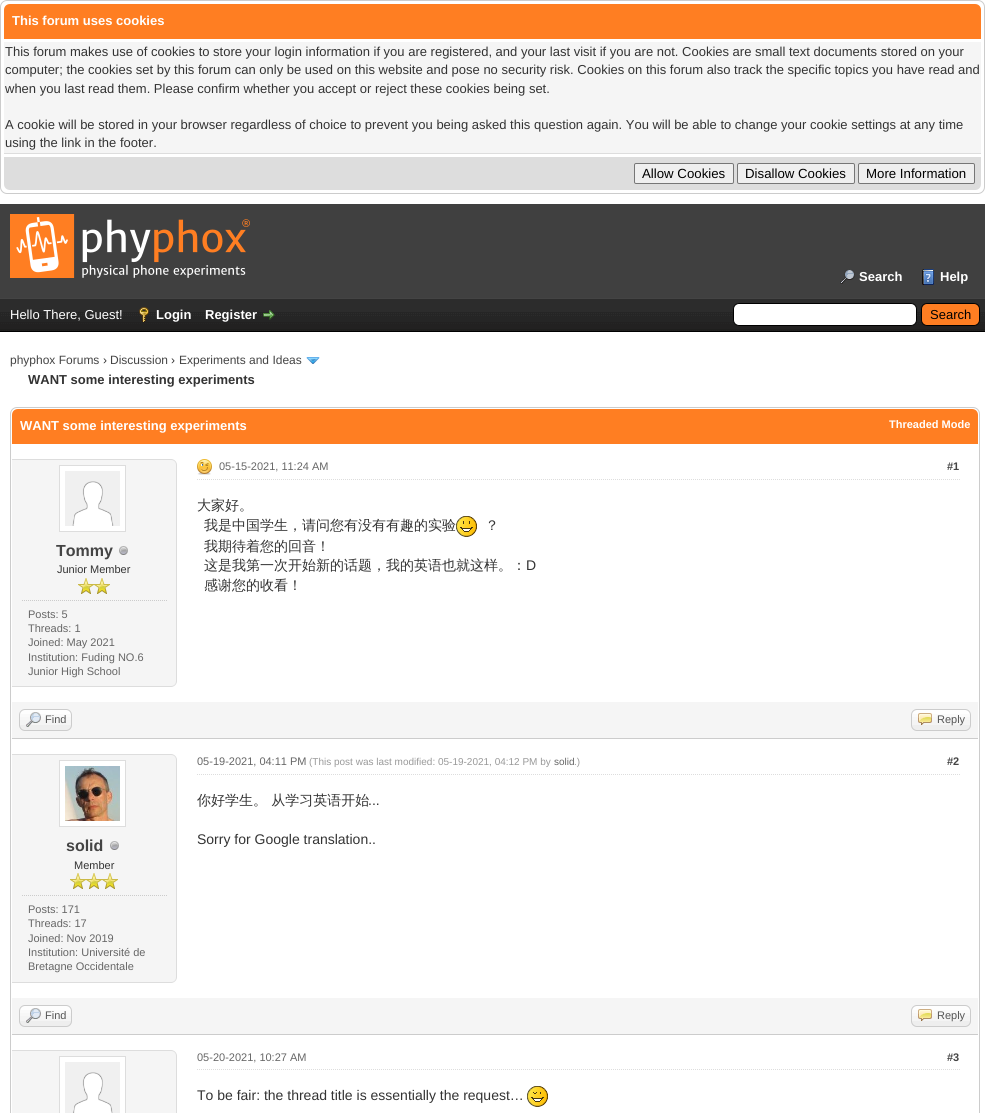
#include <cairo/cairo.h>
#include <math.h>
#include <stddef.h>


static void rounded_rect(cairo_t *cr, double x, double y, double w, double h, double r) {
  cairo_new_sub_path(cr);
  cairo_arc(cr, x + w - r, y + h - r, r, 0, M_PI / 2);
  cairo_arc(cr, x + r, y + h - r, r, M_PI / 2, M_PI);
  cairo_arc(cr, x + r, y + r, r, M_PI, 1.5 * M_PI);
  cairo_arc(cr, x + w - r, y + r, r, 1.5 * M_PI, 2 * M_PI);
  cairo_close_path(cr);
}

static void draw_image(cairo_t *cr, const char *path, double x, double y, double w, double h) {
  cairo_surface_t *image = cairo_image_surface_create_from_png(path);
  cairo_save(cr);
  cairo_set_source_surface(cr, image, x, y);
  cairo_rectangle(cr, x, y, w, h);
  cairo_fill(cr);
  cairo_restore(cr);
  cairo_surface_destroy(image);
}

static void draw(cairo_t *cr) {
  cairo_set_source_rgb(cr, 1, 1, 1);
  cairo_paint(cr);
  rounded_rect(cr, 0.5, 0.5, 984, 193, 6.5);
  cairo_set_source_rgb(cr, 204 / 255.0, 204 / 255.0, 204 / 255.0);
  cairo_set_line_width(cr, 1);
  cairo_stroke(cr);
  cairo_set_source_rgb(cr, 1, 126 / 255.0, 34 / 255.0);
  cairo_new_path(cr);
  cairo_move_to(cr, 10, 4);
  cairo_line_to(cr, 975, 4);
  cairo_curve_to(cr, 978.5, 4, 981, 6.5, 981, 10);
  cairo_line_to(cr, 981, 39);
  cairo_line_to(cr, 4, 39);
  cairo_line_to(cr, 4, 10);
  cairo_curve_to(cr, 4, 6.5, 6.5, 4, 10, 4);
  cairo_close_path(cr);
  cairo_fill(cr);
  cairo_set_source_rgb(cr, 245 / 255.0, 245 / 255.0, 245 / 255.0);
  cairo_rectangle(cr, 4, 42, 977, 111);
  cairo_fill(cr);
  cairo_set_source_rgb(cr, 221 / 255.0, 221 / 255.0, 221 / 255.0);
  cairo_rectangle(cr, 4, 153, 977, 1);
  cairo_fill(cr);
  cairo_new_path(cr);
  cairo_move_to(cr, 4, 156);
  cairo_line_to(cr, 981, 156);
  cairo_line_to(cr, 981, 184);
  cairo_curve_to(cr, 981, 187.5, 978.5, 190, 975, 190);
  cairo_line_to(cr, 10, 190);
  cairo_curve_to(cr, 6.5, 190, 4, 187.5, 4, 184);
  cairo_close_path(cr);
  cairo_fill(cr);
  cairo_set_source_rgb(cr, 1, 1, 1);
  cairo_rectangle(cr, 4, 156, 977, 1);
  cairo_fill(cr);
  cairo_set_source_rgb(cr, 239 / 255.0, 239 / 255.0, 239 / 255.0);
  rounded_rect(cr, 634.5, 163.5, 99, 20, 1.5);
  cairo_fill_preserve(cr);
  cairo_set_source_rgb(cr, 118 / 255.0, 118 / 255.0, 118 / 255.0);
  cairo_stroke(cr);
  cairo_set_source_rgb(cr, 239 / 255.0, 239 / 255.0, 239 / 255.0);
  rounded_rect(cr, 737.5, 163.5, 117, 20, 1.5);
  cairo_fill_preserve(cr);
  cairo_set_source_rgb(cr, 118 / 255.0, 118 / 255.0, 118 / 255.0);
  cairo_stroke(cr);
  cairo_set_source_rgb(cr, 239 / 255.0, 239 / 255.0, 239 / 255.0);
  rounded_rect(cr, 858.5, 163.5, 116, 20, 1.5);
  cairo_fill_preserve(cr);
  cairo_set_source_rgb(cr, 118 / 255.0, 118 / 255.0, 118 / 255.0);
  cairo_stroke(cr);
  cairo_set_source_rgb(cr, 64 / 255.0, 64 / 255.0, 64 / 255.0);
  cairo_rectangle(cr, 0, 204, 985, 94);
  cairo_fill(cr);
  draw_image(cr, "images/1.png", 10, 214, 240, 64);
  draw_image(cr, "images/2.png", 840, 269, 15, 15);
  draw_image(cr, "images/3.png", 922, 269, 12, 16);
  draw_image(cr, "images/4.png", 0, 299, 985, 32);
  cairo_set_source_rgb(cr, 68 / 255.0, 68 / 255.0, 68 / 255.0);
  cairo_rectangle(cr, 0, 298, 985, 1);
  cairo_fill(cr);
  cairo_set_source_rgb(cr, 0, 0, 0);
  cairo_rectangle(cr, 0, 331, 985, 1);
  cairo_fill(cr);
  draw_image(cr, "images/5.png", 139, 307, 10, 15);
  draw_image(cr, "images/6.png", 263, 310, 12, 10);
  cairo_set_source_rgb(cr, 1, 1, 1);
  rounded_rect(cr, 733.5, 303.5, 183, 22, 5.5);
  cairo_fill_preserve(cr);
  cairo_set_source_rgb(cr, 0, 0, 0);
  cairo_stroke(cr);
  cairo_set_source_rgb(cr, 1, 126 / 255.0, 34 / 255.0);
  rounded_rect(cr, 921.5, 303.5, 58, 22, 5.5);
  cairo_fill_preserve(cr);
  cairo_set_source_rgb(cr, 0, 0, 0);
  cairo_stroke(cr);
  draw_image(cr, "images/7.png", 306, 357, 14, 7);
  rounded_rect(cr, 10.5, 407.5, 969, 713, 6.5);
  cairo_set_source_rgb(cr, 204 / 255.0, 204 / 255.0, 204 / 255.0);
  cairo_stroke(cr);
  cairo_set_source_rgb(cr, 1, 126 / 255.0, 34 / 255.0);
  cairo_new_path(cr);
  cairo_move_to(cr, 18, 409);
  cairo_line_to(cr, 972, 409);
  cairo_curve_to(cr, 975.5, 409, 978, 411.5, 978, 415);
  cairo_line_to(cr, 978, 444);
  cairo_line_to(cr, 12, 444);
  cairo_line_to(cr, 12, 415);
  cairo_curve_to(cr, 12, 411.5, 14.5, 409, 18, 409);
  cairo_close_path(cr);
  cairo_fill(cr);
  cairo_new_path(cr);
  cairo_move_to(cr, 197, 479.5);
  cairo_line_to(cr, 960, 479.5);
  cairo_set_source_rgb(cr, 221 / 255.0, 221 / 255.0, 221 / 255.0);
  cairo_set_dash(cr, (double[]){1, 1}, 2, 0);
  cairo_stroke(cr);
  draw_image(cr, "images/8.png", 197, 459, 15, 16);
  draw_image(cr, "images/9.png", 456, 516, 21, 21);
  cairo_set_source_rgb(cr, 245 / 255.0, 245 / 255.0, 245 / 255.0);
  cairo_new_path(cr);
  cairo_move_to(cr, 12, 459);
  cairo_line_to(cr, 171, 459);
  cairo_curve_to(cr, 174.5, 459, 177, 461.5, 177, 465);
  cairo_line_to(cr, 177, 681);
  cairo_curve_to(cr, 177, 684.5, 174.5, 687, 171, 687);
  cairo_line_to(cr, 12, 687);
  cairo_close_path(cr);
  cairo_fill(cr);
  cairo_set_source_rgb(cr, 221 / 255.0, 221 / 255.0, 221 / 255.0);
  cairo_set_fill_rule(cr, CAIRO_FILL_RULE_EVEN_ODD);
  cairo_new_path(cr);
  cairo_move_to(cr, 12, 459);
  cairo_line_to(cr, 171, 459);
  cairo_curve_to(cr, 174, 459, 177, 462, 177, 465);
  cairo_line_to(cr, 177, 681);
  cairo_curve_to(cr, 177, 684, 174, 687, 171, 687);
  cairo_line_to(cr, 12, 687);
  cairo_close_path(cr);
  cairo_move_to(cr, 12, 460);
  cairo_line_to(cr, 171, 460);
  cairo_curve_to(cr, 174, 460, 176, 462, 176, 465);
  cairo_line_to(cr, 176, 681);
  cairo_curve_to(cr, 176, 684, 174, 686, 171, 686);
  cairo_line_to(cr, 12, 686);
  cairo_close_path(cr);
  cairo_fill(cr);
  cairo_set_source_rgb(cr, 1, 1, 1);
  cairo_rectangle(cr, 59.5, 465.5, 66, 66);
  cairo_fill_preserve(cr);
  cairo_set_source_rgb(cr, 221 / 255.0, 221 / 255.0, 221 / 255.0);
  cairo_set_dash(cr, NULL, 0, 0);
  cairo_stroke(cr);
  draw_image(cr, "images/10.png", 65, 471, 55, 55);
  draw_image(cr, "images/11.png", 119, 546, 9, 9);
  draw_image(cr, "images/12.png", 78, 578, 16, 16);
  draw_image(cr, "images/12.png", 94, 578, 16, 16);
  cairo_new_path(cr);
  cairo_move_to(cr, 22, 600.5);
  cairo_line_to(cr, 167, 600.5);
  cairo_set_source_rgb(cr, 204 / 255.0, 204 / 255.0, 204 / 255.0);
  cairo_set_dash(cr, (double[]){1, 1}, 2, 0);
  cairo_stroke(cr);
  cairo_set_source_rgb(cr, 245 / 255.0, 245 / 255.0, 245 / 255.0);
  cairo_rectangle(cr, 12, 702, 966, 36);
  cairo_fill(cr);
  cairo_set_source_rgb(cr, 204 / 255.0, 204 / 255.0, 204 / 255.0);
  cairo_rectangle(cr, 12, 738, 966, 1);
  cairo_fill(cr);
  cairo_set_source_rgb(cr, 238 / 255.0, 238 / 255.0, 238 / 255.0);
  rounded_rect(cr, 19, 709, 53, 22, 6);
  cairo_fill(cr);
  draw_image(cr, "images/13.png", 19, 710, 53, 15);
  rounded_rect(cr, 19.5, 709.5, 52, 21, 5.5);
  cairo_set_source_rgb(cr, 204 / 255.0, 204 / 255.0, 204 / 255.0);
  cairo_set_dash(cr, NULL, 0, 0);
  cairo_stroke(cr);
  draw_image(cr, "images/14.png", 26, 712, 15, 15);
  cairo_set_source_rgb(cr, 238 / 255.0, 238 / 255.0, 238 / 255.0);
  rounded_rect(cr, 911, 709, 60, 22, 6);
  cairo_fill(cr);
  draw_image(cr, "images/15.png", 911, 710, 60, 15);
  rounded_rect(cr, 911.5, 709.5, 59, 21, 5.5);
  cairo_set_source_rgb(cr, 204 / 255.0, 204 / 255.0, 204 / 255.0);
  cairo_stroke(cr);
  draw_image(cr, "images/16.png", 918, 713, 14, 12);
  cairo_new_path(cr);
  cairo_move_to(cr, 197, 774.5);
  cairo_line_to(cr, 960, 774.5);
  cairo_set_source_rgb(cr, 221 / 255.0, 221 / 255.0, 221 / 255.0);
  cairo_set_dash(cr, (double[]){1, 1}, 2, 0);
  cairo_stroke(cr);
  cairo_set_source_rgb(cr, 245 / 255.0, 245 / 255.0, 245 / 255.0);
  cairo_new_path(cr);
  cairo_move_to(cr, 12, 754);
  cairo_line_to(cr, 171, 754);
  cairo_curve_to(cr, 174.5, 754, 177, 756.5, 177, 760);
  cairo_line_to(cr, 177, 977);
  cairo_curve_to(cr, 177, 980.5, 174.5, 983, 171, 983);
  cairo_line_to(cr, 12, 983);
  cairo_close_path(cr);
  cairo_fill(cr);
  cairo_set_source_rgb(cr, 221 / 255.0, 221 / 255.0, 221 / 255.0);
  cairo_new_path(cr);
  cairo_move_to(cr, 12, 754);
  cairo_line_to(cr, 171, 754);
  cairo_curve_to(cr, 174, 754, 177, 757, 177, 760);
  cairo_line_to(cr, 177, 977);
  cairo_curve_to(cr, 177, 980, 174, 983, 171, 983);
  cairo_line_to(cr, 12, 983);
  cairo_close_path(cr);
  cairo_move_to(cr, 12, 755);
  cairo_line_to(cr, 171, 755);
  cairo_curve_to(cr, 174, 755, 176, 757, 176, 760);
  cairo_line_to(cr, 176, 977);
  cairo_curve_to(cr, 176, 980, 174, 982, 171, 982);
  cairo_line_to(cr, 12, 982);
  cairo_close_path(cr);
  cairo_fill(cr);
  cairo_set_source_rgb(cr, 1, 1, 1);
  cairo_rectangle(cr, 59.5, 760.5, 66, 66);
  cairo_fill_preserve(cr);
  cairo_set_source_rgb(cr, 221 / 255.0, 221 / 255.0, 221 / 255.0);
  cairo_set_dash(cr, NULL, 0, 0);
  cairo_stroke(cr);
  draw_image(cr, "images/17.png", 65, 766, 55, 55);
  draw_image(cr, "images/11.png", 110, 841, 9, 9);
  draw_image(cr, "images/12.png", 70, 873, 16, 16);
  draw_image(cr, "images/12.png", 86, 873, 16, 16);
  draw_image(cr, "images/12.png", 102, 873, 16, 16);
  cairo_new_path(cr);
  cairo_move_to(cr, 22, 895.5);
  cairo_line_to(cr, 167, 895.5);
  cairo_set_source_rgb(cr, 204 / 255.0, 204 / 255.0, 204 / 255.0);
  cairo_set_dash(cr, (double[]){1, 1}, 2, 0);
  cairo_stroke(cr);
  cairo_set_source_rgb(cr, 245 / 255.0, 245 / 255.0, 245 / 255.0);
  cairo_rectangle(cr, 12, 998, 966, 36);
  cairo_fill(cr);
  cairo_set_source_rgb(cr, 204 / 255.0, 204 / 255.0, 204 / 255.0);
  cairo_rectangle(cr, 12, 1034, 966, 1);
  cairo_fill(cr);
  cairo_set_source_rgb(cr, 238 / 255.0, 238 / 255.0, 238 / 255.0);
  rounded_rect(cr, 19, 1005, 53, 22, 6);
  cairo_fill(cr);
  draw_image(cr, "images/13.png", 19, 1006, 53, 15);
  rounded_rect(cr, 19.5, 1005.5, 52, 21, 5.5);
  cairo_set_source_rgb(cr, 204 / 255.0, 204 / 255.0, 204 / 255.0);
  cairo_set_dash(cr, NULL, 0, 0);
  cairo_stroke(cr);
  draw_image(cr, "images/14.png", 26, 1008, 15, 15);
  cairo_set_source_rgb(cr, 238 / 255.0, 238 / 255.0, 238 / 255.0);
  rounded_rect(cr, 911, 1005, 60, 22, 6);
  cairo_fill(cr);
  draw_image(cr, "images/15.png", 911, 1006, 60, 15);
  rounded_rect(cr, 911.5, 1005.5, 59, 21, 5.5);
  cairo_set_source_rgb(cr, 204 / 255.0, 204 / 255.0, 204 / 255.0);
  cairo_stroke(cr);
  draw_image(cr, "images/16.png", 918, 1009, 14, 12);
  cairo_set_source_rgb(cr, 245 / 255.0, 245 / 255.0, 245 / 255.0);
  cairo_new_path(cr);
  cairo_move_to(cr, 12, 1050);
  cairo_line_to(cr, 171, 1050);
  cairo_curve_to(cr, 174.5, 1050, 177, 1052.5, 177, 1056);
  cairo_line_to(cr, 177, 1113);
  cairo_curve_to(cr, 177, 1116.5, 174.5, 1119, 171, 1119);
  cairo_line_to(cr, 12, 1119);
  cairo_close_path(cr);
  cairo_fill(cr);
  cairo_set_source_rgb(cr, 221 / 255.0, 221 / 255.0, 221 / 255.0);
  cairo_new_path(cr);
  cairo_move_to(cr, 12, 1050);
  cairo_line_to(cr, 171, 1050);
  cairo_curve_to(cr, 174, 1050, 177, 1053, 177, 1056);
  cairo_line_to(cr, 177, 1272);
  cairo_curve_to(cr, 177, 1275, 174, 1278, 171, 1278);
  cairo_line_to(cr, 12, 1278);
  cairo_close_path(cr);
  cairo_move_to(cr, 12, 1051);
  cairo_line_to(cr, 171, 1051);
  cairo_curve_to(cr, 174, 1051, 176, 1053, 176, 1056);
  cairo_line_to(cr, 176, 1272);
  cairo_curve_to(cr, 176, 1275, 174, 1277, 171, 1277);
  cairo_line_to(cr, 12, 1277);
  cairo_close_path(cr);
  cairo_fill(cr);
  cairo_set_source_rgb(cr, 1, 1, 1);
  cairo_rectangle(cr, 59.5, 1056.5, 66, 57);
  cairo_fill_preserve(cr);
  cairo_set_source_rgb(cr, 221 / 255.0, 221 / 255.0, 221 / 255.0);
  cairo_stroke(cr);
  draw_image(cr, "images/18.png", 65, 1062, 55, 51);
  cairo_new_path(cr);
  cairo_move_to(cr, 197, 1069.5);
  cairo_line_to(cr, 960, 1069.5);
  cairo_set_dash(cr, (double[]){1, 1}, 2, 0);
  cairo_stroke(cr);
  draw_image(cr, "images/19.png", 527, 1086, 21, 21);
  cairo_select_font_face(cr, "Liberation Sans", CAIRO_FONT_SLANT_NORMAL, CAIRO_FONT_WEIGHT_BOLD);
  cairo_set_font_size(cr, 13);
  cairo_set_source_rgb(cr, 1, 1, 1);
  cairo_move_to(cr, 12, 25);
  cairo_show_text(cr, "This forum uses cookies");
  cairo_select_font_face(cr, "Liberation Sans", CAIRO_FONT_SLANT_NORMAL, CAIRO_FONT_WEIGHT_NORMAL);
  cairo_set_source_rgb(cr, 51 / 255.0, 51 / 255.0, 51 / 255.0);
  cairo_move_to(cr, 5, 56);
  cairo_show_text(cr, "This forum makes use of cookies to store your login information if you are registered, and your last visit if you are not. Cookies are small text documents stored on your");
  cairo_move_to(cr, 5, 74);
  cairo_show_text(cr, "computer; the cookies set by this forum can only be used on this website and pose no security risk. Cookies on this forum also track the specific topics you have read and");
  cairo_move_to(cr, 5, 93);
  cairo_show_text(cr, "when you last read them. Please confirm whether you accept or reject these cookies being set.");
  cairo_move_to(cr, 5, 129);
  cairo_show_text(cr, "A cookie will be stored in your browser regardless of choice to prevent you being asked this question again. You will be able to change your cookie settings at any time");
  cairo_move_to(cr, 5, 147);
  cairo_show_text(cr, "using the link in the footer.");
  cairo_set_font_size(cr, 13.25);
  cairo_set_source_rgb(cr, 0, 0, 0);
  cairo_move_to(cr, 642, 178);
  cairo_show_text(cr, "Allow Cookies");
  cairo_move_to(cr, 745, 178);
  cairo_show_text(cr, "Disallow Cookies");
  cairo_move_to(cr, 866, 178);
  cairo_show_text(cr, "More Information");
  cairo_select_font_face(cr, "Liberation Sans", CAIRO_FONT_SLANT_NORMAL, CAIRO_FONT_WEIGHT_BOLD);
  cairo_set_font_size(cr, 13);
  cairo_set_source_rgb(cr, 1, 1, 1);
  cairo_move_to(cr, 859, 281);
  cairo_show_text(cr, "Search");
  cairo_move_to(cr, 940, 281);
  cairo_show_text(cr, "Help");
  cairo_select_font_face(cr, "Liberation Sans", CAIRO_FONT_SLANT_NORMAL, CAIRO_FONT_WEIGHT_NORMAL);
  cairo_move_to(cr, 10, 319);
  cairo_show_text(cr, "Hello There, Guest!");
  cairo_select_font_face(cr, "Liberation Sans", CAIRO_FONT_SLANT_NORMAL, CAIRO_FONT_WEIGHT_BOLD);
  cairo_move_to(cr, 156, 319);
  cairo_show_text(cr, "Login");
  cairo_move_to(cr, 205, 319);
  cairo_show_text(cr, "Register");
  cairo_select_font_face(cr, "Liberation Sans", CAIRO_FONT_SLANT_NORMAL, CAIRO_FONT_WEIGHT_NORMAL);
  cairo_set_source_rgb(cr, 0, 0, 0);
  cairo_move_to(cr, 930, 319);
  cairo_show_text(cr, "Search");
  cairo_set_font_size(cr, 12);
  cairo_set_source_rgb(cr, 68 / 255.0, 68 / 255.0, 68 / 255.0);
  cairo_move_to(cr, 10, 364);
  cairo_show_text(cr, "phyphox Forums");
  cairo_set_source_rgb(cr, 51 / 255.0, 51 / 255.0, 51 / 255.0);
  cairo_move_to(cr, 103, 364);
  cairo_show_text(cr, "›");
  cairo_set_source_rgb(cr, 68 / 255.0, 68 / 255.0, 68 / 255.0);
  cairo_move_to(cr, 110, 364);
  cairo_show_text(cr, "Discussion");
  cairo_set_source_rgb(cr, 51 / 255.0, 51 / 255.0, 51 / 255.0);
  cairo_move_to(cr, 171, 364);
  cairo_show_text(cr, "›");
  cairo_set_source_rgb(cr, 68 / 255.0, 68 / 255.0, 68 / 255.0);
  cairo_move_to(cr, 179, 364);
  cairo_show_text(cr, "Experiments and Ideas");
  cairo_select_font_face(cr, "Liberation Sans", CAIRO_FONT_SLANT_NORMAL, CAIRO_FONT_WEIGHT_BOLD);
  cairo_set_font_size(cr, 13);
  cairo_set_source_rgb(cr, 51 / 255.0, 51 / 255.0, 51 / 255.0);
  cairo_move_to(cr, 28, 384);
  cairo_show_text(cr, "WANT some interesting experiments");
  cairo_set_source_rgb(cr, 1, 1, 1);
  cairo_move_to(cr, 20, 430);
  cairo_show_text(cr, "WANT some interesting experiments");
  cairo_set_font_size(cr, 11);
  cairo_move_to(cr, 889, 428);
  cairo_show_text(cr, "Threaded Mode");
  cairo_select_font_face(cr, "Liberation Sans", CAIRO_FONT_SLANT_NORMAL, CAIRO_FONT_WEIGHT_NORMAL);
  cairo_set_source_rgb(cr, 102 / 255.0, 102 / 255.0, 102 / 255.0);
  cairo_move_to(cr, 219, 470);
  cairo_show_text(cr, "05-15-2021, 11:24 AM");
  cairo_select_font_face(cr, "Liberation Sans", CAIRO_FONT_SLANT_NORMAL, CAIRO_FONT_WEIGHT_BOLD);
  cairo_set_source_rgb(cr, 68 / 255.0, 68 / 255.0, 68 / 255.0);
  cairo_move_to(cr, 947, 470);
  cairo_show_text(cr, "#1");
  cairo_select_font_face(cr, "WenQuanYi Zen Hei Medium", CAIRO_FONT_SLANT_NORMAL, CAIRO_FONT_WEIGHT_NORMAL);
  cairo_set_font_size(cr, 14);
  cairo_set_source_rgb(cr, 51 / 255.0, 51 / 255.0, 51 / 255.0);
  cairo_move_to(cr, 197, 510);
  cairo_show_text(cr, "大家好。");
  cairo_move_to(cr, 204, 530);
  cairo_show_text(cr, "我是中国学生，请问您有没有有趣的实验");
  cairo_move_to(cr, 485, 530);
  cairo_show_text(cr, "？");
  cairo_move_to(cr, 204, 551);
  cairo_show_text(cr, "我期待着您的回音！");
  cairo_move_to(cr, 204, 570);
  cairo_show_text(cr, "这是我第一次开始新的话题，我的英语也就这样。：");
  cairo_select_font_face(cr, "Liberation Sans", CAIRO_FONT_SLANT_NORMAL, CAIRO_FONT_WEIGHT_NORMAL);
  cairo_move_to(cr, 526, 570);
  cairo_show_text(cr, "D");
  cairo_select_font_face(cr, "WenQuanYi Zen Hei Medium", CAIRO_FONT_SLANT_NORMAL, CAIRO_FONT_WEIGHT_NORMAL);
  cairo_move_to(cr, 204, 590);
  cairo_show_text(cr, "感谢您的收看！");
  cairo_select_font_face(cr, "Liberation Sans", CAIRO_FONT_SLANT_NORMAL, CAIRO_FONT_WEIGHT_BOLD);
  cairo_set_font_size(cr, 16);
  cairo_set_source_rgb(cr, 68 / 255.0, 68 / 255.0, 68 / 255.0);
  cairo_move_to(cr, 56, 556);
  cairo_show_text(cr, "Tommy");
  cairo_select_font_face(cr, "Liberation Sans", CAIRO_FONT_SLANT_NORMAL, CAIRO_FONT_WEIGHT_NORMAL);
  cairo_set_font_size(cr, 11);
  cairo_set_source_rgb(cr, 51 / 255.0, 51 / 255.0, 51 / 255.0);
  cairo_move_to(cr, 57, 573);
  cairo_show_text(cr, "Junior Member");
  cairo_set_source_rgb(cr, 102 / 255.0, 102 / 255.0, 102 / 255.0);
  cairo_move_to(cr, 28, 618);
  cairo_show_text(cr, "Posts: 5");
  cairo_move_to(cr, 28, 632);
  cairo_show_text(cr, "Threads: 1");
  cairo_move_to(cr, 28, 646);
  cairo_show_text(cr, "Joined: May 2021");
  cairo_move_to(cr, 28, 661);
  cairo_show_text(cr, "Institution: Fuding NO.6");
  cairo_move_to(cr, 28, 675);
  cairo_show_text(cr, "Junior High School");
  cairo_set_source_rgb(cr, 85 / 255.0, 85 / 255.0, 85 / 255.0);
  cairo_move_to(cr, 45, 723);
  cairo_show_text(cr, "Find");
  cairo_move_to(cr, 937, 723);
  cairo_show_text(cr, "Reply");
  cairo_set_source_rgb(cr, 102 / 255.0, 102 / 255.0, 102 / 255.0);
  cairo_move_to(cr, 197, 765);
  cairo_show_text(cr, "05-19-2021, 04:11 PM");
  cairo_set_font_size(cr, 10);
  cairo_set_source_rgb(cr, 153 / 255.0, 153 / 255.0, 153 / 255.0);
  cairo_move_to(cr, 309, 765);
  cairo_show_text(cr, "(This post was last modified: 05-19-2021, 04:12 PM by");
  cairo_set_source_rgb(cr, 102 / 255.0, 102 / 255.0, 102 / 255.0);
  cairo_move_to(cr, 554, 765);
  cairo_show_text(cr, "solid");
  cairo_set_source_rgb(cr, 153 / 255.0, 153 / 255.0, 153 / 255.0);
  cairo_move_to(cr, 574, 765);
  cairo_show_text(cr, ".)");
  cairo_select_font_face(cr, "Liberation Sans", CAIRO_FONT_SLANT_NORMAL, CAIRO_FONT_WEIGHT_BOLD);
  cairo_set_font_size(cr, 11);
  cairo_set_source_rgb(cr, 68 / 255.0, 68 / 255.0, 68 / 255.0);
  cairo_move_to(cr, 947, 765);
  cairo_show_text(cr, "#2");
  cairo_select_font_face(cr, "WenQuanYi Zen Hei Medium", CAIRO_FONT_SLANT_NORMAL, CAIRO_FONT_WEIGHT_NORMAL);
  cairo_set_font_size(cr, 14);
  cairo_set_source_rgb(cr, 51 / 255.0, 51 / 255.0, 51 / 255.0);
  cairo_move_to(cr, 197, 805);
  cairo_show_text(cr, "你好学生。 从学习英语开始");
  cairo_select_font_face(cr, "Liberation Sans", CAIRO_FONT_SLANT_NORMAL, CAIRO_FONT_WEIGHT_NORMAL);
  cairo_move_to(cr, 368, 805);
  cairo_show_text(cr, "...");
  cairo_move_to(cr, 197, 844);
  cairo_show_text(cr, "Sorry for Google translation..");
  cairo_select_font_face(cr, "Liberation Sans", CAIRO_FONT_SLANT_NORMAL, CAIRO_FONT_WEIGHT_BOLD);
  cairo_set_font_size(cr, 16);
  cairo_set_source_rgb(cr, 68 / 255.0, 68 / 255.0, 68 / 255.0);
  cairo_move_to(cr, 66, 851);
  cairo_show_text(cr, "solid");
  cairo_select_font_face(cr, "Liberation Sans", CAIRO_FONT_SLANT_NORMAL, CAIRO_FONT_WEIGHT_NORMAL);
  cairo_set_font_size(cr, 11);
  cairo_set_source_rgb(cr, 51 / 255.0, 51 / 255.0, 51 / 255.0);
  cairo_move_to(cr, 74, 869);
  cairo_show_text(cr, "Member");
  cairo_set_source_rgb(cr, 102 / 255.0, 102 / 255.0, 102 / 255.0);
  cairo_move_to(cr, 28, 913);
  cairo_show_text(cr, "Posts: 171");
  cairo_move_to(cr, 28, 927);
  cairo_show_text(cr, "Threads: 17");
  cairo_move_to(cr, 28, 942);
  cairo_show_text(cr, "Joined: Nov 2019");
  cairo_move_to(cr, 28, 956);
  cairo_show_text(cr, "Institution: Université de");
  cairo_move_to(cr, 28, 970);
  cairo_show_text(cr, "Bretagne Occidentale");
  cairo_set_source_rgb(cr, 85 / 255.0, 85 / 255.0, 85 / 255.0);
  cairo_move_to(cr, 45, 1019);
  cairo_show_text(cr, "Find");
  cairo_move_to(cr, 937, 1019);
  cairo_show_text(cr, "Reply");
  cairo_set_source_rgb(cr, 102 / 255.0, 102 / 255.0, 102 / 255.0);
  cairo_move_to(cr, 197, 1061);
  cairo_show_text(cr, "05-20-2021, 10:27 AM");
  cairo_select_font_face(cr, "Liberation Sans", CAIRO_FONT_SLANT_NORMAL, CAIRO_FONT_WEIGHT_BOLD);
  cairo_set_source_rgb(cr, 68 / 255.0, 68 / 255.0, 68 / 255.0);
  cairo_move_to(cr, 947, 1061);
  cairo_show_text(cr, "#3");
  cairo_select_font_face(cr, "Liberation Sans", CAIRO_FONT_SLANT_NORMAL, CAIRO_FONT_WEIGHT_NORMAL);
  cairo_set_font_size(cr, 14);
  cairo_set_source_rgb(cr, 51 / 255.0, 51 / 255.0, 51 / 255.0);
  cairo_move_to(cr, 197, 1100);
  cairo_show_text(cr, "To be fair: the thread title is essentially the request…");
}

int main(void) {
  cairo_surface_t *surface = cairo_image_surface_create(CAIRO_FORMAT_RGB24, 985, 1113);
  cairo_t *cr = cairo_create(surface);
  cairo_font_options_t *options = cairo_font_options_create();
  cairo_font_options_set_hint_metrics(options, CAIRO_HINT_METRICS_OFF);
  cairo_font_options_set_hint_style(options, CAIRO_HINT_STYLE_NONE);
  cairo_set_font_options(cr, options);
  cairo_set_miter_limit(cr, 4);
  draw(cr);
  cairo_surface_write_to_png(surface, "out.png");
  cairo_font_options_destroy(options);
  cairo_destroy(cr);
  cairo_surface_destroy(surface);
  return 0;
}
